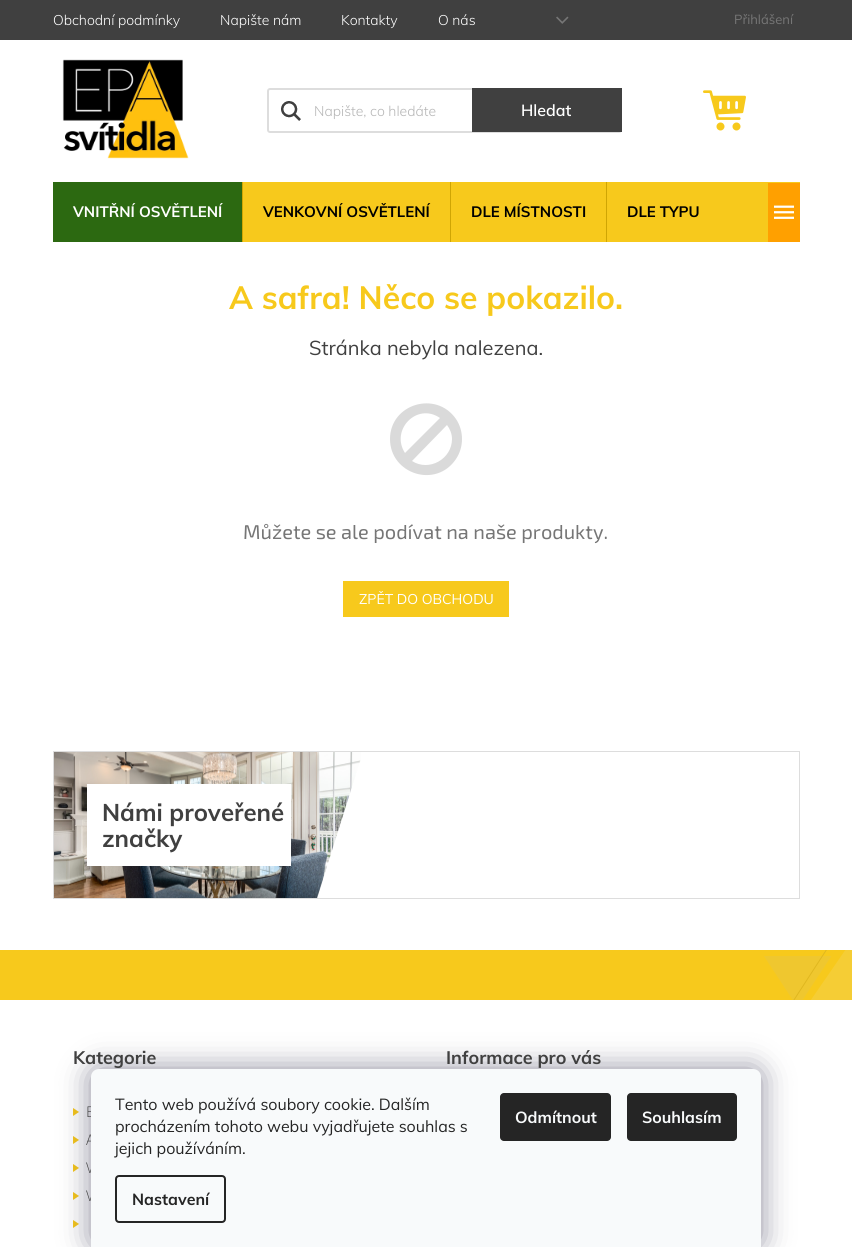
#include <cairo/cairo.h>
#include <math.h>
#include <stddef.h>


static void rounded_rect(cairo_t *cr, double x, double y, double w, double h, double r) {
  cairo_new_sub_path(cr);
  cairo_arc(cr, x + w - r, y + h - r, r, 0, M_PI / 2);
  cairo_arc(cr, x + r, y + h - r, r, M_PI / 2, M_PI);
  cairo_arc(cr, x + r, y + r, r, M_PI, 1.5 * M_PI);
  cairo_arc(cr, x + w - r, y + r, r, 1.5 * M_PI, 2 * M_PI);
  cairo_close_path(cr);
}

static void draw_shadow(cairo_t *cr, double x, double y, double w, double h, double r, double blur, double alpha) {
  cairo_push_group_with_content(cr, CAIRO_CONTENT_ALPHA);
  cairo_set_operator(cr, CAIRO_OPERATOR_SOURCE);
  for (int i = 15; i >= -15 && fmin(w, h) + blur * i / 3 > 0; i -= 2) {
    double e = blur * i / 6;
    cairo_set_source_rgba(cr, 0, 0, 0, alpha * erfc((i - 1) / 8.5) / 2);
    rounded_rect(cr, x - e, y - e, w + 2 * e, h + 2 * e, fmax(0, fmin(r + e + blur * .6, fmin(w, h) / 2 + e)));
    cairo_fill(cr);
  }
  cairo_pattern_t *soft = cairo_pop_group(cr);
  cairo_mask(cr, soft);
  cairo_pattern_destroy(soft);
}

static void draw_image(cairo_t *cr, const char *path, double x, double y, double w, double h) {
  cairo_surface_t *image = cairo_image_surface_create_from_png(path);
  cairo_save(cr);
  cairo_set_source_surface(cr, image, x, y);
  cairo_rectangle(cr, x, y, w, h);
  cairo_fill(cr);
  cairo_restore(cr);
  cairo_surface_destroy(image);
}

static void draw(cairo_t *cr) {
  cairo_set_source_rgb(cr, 1, 1, 1);
  cairo_paint(cr);
  cairo_set_source_rgb(cr, 64 / 255.0, 64 / 255.0, 64 / 255.0);
  cairo_rectangle(cr, 0, 0, 852, 40);
  cairo_fill(cr);
  draw_image(cr, "images/1.png", 556, 16, 13, 8);
  draw_image(cr, "images/2.png", 62, 59, 127, 100);
  draw_image(cr, "images/3.png", 281, 101, 20, 20);
  rounded_rect(cr, 268, 89, 353, 43, 2);
  cairo_set_source_rgb(cr, 221 / 255.0, 221 / 255.0, 221 / 255.0);
  cairo_stroke(cr);
  cairo_set_source_rgb(cr, 64 / 255.0, 64 / 255.0, 64 / 255.0);
  cairo_rectangle(cr, 472, 88, 150, 44);
  cairo_fill(cr);
  draw_image(cr, "images/4.png", 703, 90, 43, 41);
  cairo_set_source_rgb(cr, 247 / 255.0, 201 / 255.0, 28 / 255.0);
  cairo_rectangle(cr, 243, 182, 557, 60);
  cairo_fill(cr);
  cairo_set_source_rgb(cr, 44 / 255.0, 105 / 255.0, 17 / 255.0);
  cairo_rectangle(cr, 53, 182, 189, 60);
  cairo_fill(cr);
  cairo_set_source_rgb(cr, 207 / 255.0, 165 / 255.0, 4 / 255.0);
  cairo_rectangle(cr, 242, 182, 1, 60);
  cairo_fill(cr);
  cairo_rectangle(cr, 450, 182, 1, 60);
  cairo_fill(cr);
  cairo_rectangle(cr, 606, 182, 1, 60);
  cairo_fill(cr);
  cairo_set_source_rgb(cr, 1, 160 / 255.0, 0);
  cairo_rectangle(cr, 768, 183, 32, 59);
  cairo_fill(cr);
  draw_image(cr, "images/5.png", 774, 205, 20, 14);
  cairo_set_source_rgb(cr, 218 / 255.0, 218 / 255.0, 218 / 255.0);
  cairo_new_path(cr);
  cairo_move_to(cr, 452, 439);
  cairo_curve_to(cr, 452, 434, 450, 429, 447, 425);
  cairo_line_to(cr, 412, 461);
  cairo_curve_to(cr, 429, 472, 452, 459, 452, 439);
  cairo_close_path(cr);
  cairo_move_to(cr, 405, 453);
  cairo_line_to(cr, 440, 418);
  cairo_curve_to(cr, 417, 402, 390, 430, 405, 453);
  cairo_close_path(cr);
  cairo_move_to(cr, 462, 439);
  cairo_curve_to(cr, 462, 446, 460, 453, 456, 459);
  cairo_curve_to(cr, 436, 489, 390, 474, 390, 439);
  cairo_curve_to(cr, 390, 404, 436, 390, 456, 419);
  cairo_curve_to(cr, 460, 425, 462, 432, 462, 439);
  cairo_close_path(cr);
  cairo_fill(cr);
  cairo_set_source_rgb(cr, 247 / 255.0, 201 / 255.0, 28 / 255.0);
  cairo_rectangle(cr, 343, 581, 166, 36);
  cairo_fill(cr);
  draw_image(cr, "images/6.png", 54, 752, 307, 146);
  cairo_rectangle(cr, 53.5, 751.5, 746, 147);
  cairo_set_source_rgb(cr, 221 / 255.0, 221 / 255.0, 221 / 255.0);
  cairo_set_line_width(cr, 1);
  cairo_stroke(cr);
  cairo_set_source_rgb(cr, 1, 1, 1);
  cairo_rectangle(cr, 87, 784, 204, 82);
  cairo_fill(cr);
  cairo_set_source_rgb(cr, 247 / 255.0, 201 / 255.0, 28 / 255.0);
  cairo_rectangle(cr, 0, 950, 764, 50);
  cairo_fill(cr);
  draw_image(cr, "images/7.png", 764, 950, 88, 50);
  cairo_set_source_rgb(cr, 247 / 255.0, 200 / 255.0, 28 / 255.0);
  cairo_new_path(cr);
  cairo_move_to(cr, 73, 1116);
  cairo_line_to(cr, 73, 1108);
  cairo_line_to(cr, 79, 1112);
  cairo_close_path(cr);
  cairo_fill(cr);
  cairo_new_path(cr);
  cairo_move_to(cr, 73, 1144);
  cairo_line_to(cr, 73, 1136);
  cairo_line_to(cr, 79, 1140);
  cairo_close_path(cr);
  cairo_fill(cr);
  cairo_new_path(cr);
  cairo_move_to(cr, 73, 1172);
  cairo_line_to(cr, 73, 1164);
  cairo_line_to(cr, 79, 1168);
  cairo_close_path(cr);
  cairo_fill(cr);
  cairo_new_path(cr);
  cairo_move_to(cr, 73, 1200);
  cairo_line_to(cr, 73, 1192);
  cairo_line_to(cr, 79, 1196);
  cairo_close_path(cr);
  cairo_move_to(cr, 73, 1228);
  cairo_line_to(cr, 73, 1220);
  cairo_line_to(cr, 79, 1224);
  cairo_close_path(cr);
  cairo_fill(cr);
  cairo_set_source_rgb(cr, 27 / 255.0, 25 / 255.0, 57 / 255.0);
  draw_shadow(cr, 91, 1069, 670, 178, 8, 15, 0.5);
  cairo_select_font_face(cr, "Muli Light", CAIRO_FONT_SLANT_NORMAL, CAIRO_FONT_WEIGHT_NORMAL);
  cairo_set_font_size(cr, 14);
  cairo_set_source_rgb(cr, 1, 1, 1);
  cairo_move_to(cr, 53, 25);
  cairo_show_text(cr, "Obchodní podmínky");
  cairo_move_to(cr, 220, 25);
  cairo_show_text(cr, "Napište nám");
  cairo_move_to(cr, 341, 25);
  cairo_show_text(cr, "Kontakty");
  cairo_move_to(cr, 438, 25);
  cairo_show_text(cr, "O nás");
  cairo_select_font_face(cr, "Muli", CAIRO_FONT_SLANT_NORMAL, CAIRO_FONT_WEIGHT_NORMAL);
  cairo_set_font_size(cr, 13);
  cairo_set_source_rgb(cr, 118 / 255.0, 118 / 255.0, 118 / 255.0);
  cairo_move_to(cr, 734, 24);
  cairo_show_text(cr, "Přihlášení");
  cairo_select_font_face(cr, "Muli Light", CAIRO_FONT_SLANT_NORMAL, CAIRO_FONT_WEIGHT_NORMAL);
  cairo_set_font_size(cr, 14);
  cairo_set_source_rgb(cr, 182 / 255.0, 182 / 255.0, 182 / 255.0);
  cairo_move_to(cr, 314, 116);
  cairo_show_text(cr, "Napište, co hledáte");
  cairo_select_font_face(cr, "Muli SemiBold", CAIRO_FONT_SLANT_NORMAL, CAIRO_FONT_WEIGHT_NORMAL);
  cairo_set_font_size(cr, 16);
  cairo_set_source_rgb(cr, 1, 1, 1);
  cairo_move_to(cr, 521, 116);
  cairo_show_text(cr, "Hledat");
  cairo_select_font_face(cr, "Muli", CAIRO_FONT_SLANT_NORMAL, CAIRO_FONT_WEIGHT_BOLD);
  cairo_set_font_size(cr, 15);
  cairo_move_to(cr, 73, 217);
  cairo_show_text(cr, "VNITŘNÍ OSVĚTLENÍ");
  cairo_set_source_rgb(cr, 0, 0, 0);
  cairo_move_to(cr, 263, 217);
  cairo_show_text(cr, "VENKOVNÍ OSVĚTLENÍ");
  cairo_move_to(cr, 471, 217);
  cairo_show_text(cr, "DLE MÍSTNOSTI");
  cairo_move_to(cr, 627, 217);
  cairo_show_text(cr, "DLE TYPU");
  cairo_set_font_size(cr, 32);
  cairo_set_source_rgb(cr, 247 / 255.0, 201 / 255.0, 28 / 255.0);
  cairo_move_to(cr, 229, 309);
  cairo_show_text(cr, "A safra! Něco se pokazilo.");
  cairo_select_font_face(cr, "Muli", CAIRO_FONT_SLANT_NORMAL, CAIRO_FONT_WEIGHT_NORMAL);
  cairo_set_font_size(cr, 20);
  cairo_set_source_rgb(cr, 64 / 255.0, 64 / 255.0, 64 / 255.0);
  cairo_move_to(cr, 309, 355);
  cairo_show_text(cr, "Stránka nebyla nalezena.");
  cairo_select_font_face(cr, "Exo 2", CAIRO_FONT_SLANT_NORMAL, CAIRO_FONT_WEIGHT_NORMAL);
  cairo_set_source_rgb(cr, 118 / 255.0, 118 / 255.0, 118 / 255.0);
  cairo_move_to(cr, 243, 539);
  cairo_show_text(cr, "Můžete se ale podívat na naše produkty.");
  cairo_select_font_face(cr, "Muli", CAIRO_FONT_SLANT_NORMAL, CAIRO_FONT_WEIGHT_NORMAL);
  cairo_set_font_size(cr, 14);
  cairo_set_source_rgb(cr, 1, 1, 1);
  cairo_move_to(cr, 359, 604);
  cairo_show_text(cr, "ZPĚT DO OBCHODU");
  cairo_select_font_face(cr, "Muli", CAIRO_FONT_SLANT_NORMAL, CAIRO_FONT_WEIGHT_BOLD);
  cairo_set_font_size(cr, 24);
  cairo_set_source_rgb(cr, 64 / 255.0, 64 / 255.0, 64 / 255.0);
  cairo_move_to(cr, 102, 821);
  cairo_show_text(cr, "Námi proveřené");
  cairo_move_to(cr, 102, 847);
  cairo_show_text(cr, "značky");
  cairo_set_font_size(cr, 18);
  cairo_move_to(cr, 73, 1064);
  cairo_show_text(cr, "Kategorie");
  cairo_select_font_face(cr, "Source Sans 3 Light", CAIRO_FONT_SLANT_NORMAL, CAIRO_FONT_WEIGHT_NORMAL);
  cairo_set_font_size(cr, 16);
  cairo_move_to(cr, 86, 1117);
  cairo_show_text(cr, "E");
  cairo_move_to(cr, 86, 1145);
  cairo_show_text(cr, "A");
  cairo_move_to(cr, 86, 1173);
  cairo_show_text(cr, "V");
  cairo_move_to(cr, 86, 1201);
  cairo_show_text(cr, "V");
  cairo_select_font_face(cr, "Muli", CAIRO_FONT_SLANT_NORMAL, CAIRO_FONT_WEIGHT_BOLD);
  cairo_set_font_size(cr, 18);
  cairo_move_to(cr, 446, 1064);
  cairo_show_text(cr, "Informace pro vás");
  cairo_set_source_rgb(cr, 248 / 255.0, 250 / 255.0, 251 / 255.0);
  cairo_new_path(cr);
  cairo_move_to(cr, 99, 1069);
  cairo_line_to(cr, 753, 1069);
  cairo_curve_to(cr, 757.5, 1069, 761, 1072.5, 761, 1077);
  cairo_line_to(cr, 761, 1247);
  cairo_line_to(cr, 91, 1247);
  cairo_line_to(cr, 91, 1077);
  cairo_curve_to(cr, 91, 1072.5, 94.5, 1069, 99, 1069);
  cairo_close_path(cr);
  cairo_fill(cr);
  cairo_select_font_face(cr, "Muli", CAIRO_FONT_SLANT_NORMAL, CAIRO_FONT_WEIGHT_NORMAL);
  cairo_set_font_size(cr, 16);
  cairo_set_source_rgb(cr, 37 / 255.0, 37 / 255.0, 37 / 255.0);
  cairo_move_to(cr, 115, 1110);
  cairo_show_text(cr, "Tento web používá soubory cookie. Dalším");
  cairo_move_to(cr, 115, 1132);
  cairo_show_text(cr, "procházením tohoto webu vyjadřujete souhlas s");
  cairo_move_to(cr, 115, 1154);
  cairo_show_text(cr, "jejich používáním.");
  rounded_rect(cr, 116, 1176, 109, 46, 3);
  cairo_set_line_width(cr, 2);
  cairo_stroke(cr);
  cairo_select_font_face(cr, "Muli", CAIRO_FONT_SLANT_NORMAL, CAIRO_FONT_WEIGHT_BOLD);
  cairo_move_to(cr, 132, 1205);
  cairo_show_text(cr, "Nastavení");
  rounded_rect(cr, 500, 1093, 111, 48, 4);
  cairo_fill(cr);
  cairo_set_source_rgb(cr, 248 / 255.0, 250 / 255.0, 251 / 255.0);
  cairo_move_to(cr, 515, 1123);
  cairo_show_text(cr, "Odmítnout");
  cairo_set_source_rgb(cr, 37 / 255.0, 37 / 255.0, 37 / 255.0);
  rounded_rect(cr, 627, 1093, 110, 48, 4);
  cairo_fill(cr);
  cairo_set_source_rgb(cr, 248 / 255.0, 250 / 255.0, 251 / 255.0);
  cairo_move_to(cr, 642, 1123);
  cairo_show_text(cr, "Souhlasím");
}

int main(void) {
  cairo_surface_t *surface = cairo_image_surface_create(CAIRO_FORMAT_RGB24, 867, 1247);
  cairo_t *cr = cairo_create(surface);
  cairo_font_options_t *options = cairo_font_options_create();
  cairo_font_options_set_hint_metrics(options, CAIRO_HINT_METRICS_OFF);
  cairo_font_options_set_hint_style(options, CAIRO_HINT_STYLE_NONE);
  cairo_set_font_options(cr, options);
  cairo_set_miter_limit(cr, 4);
  draw(cr);
  cairo_surface_write_to_png(surface, "out.png");
  cairo_font_options_destroy(options);
  cairo_destroy(cr);
  cairo_surface_destroy(surface);
  return 0;
}
